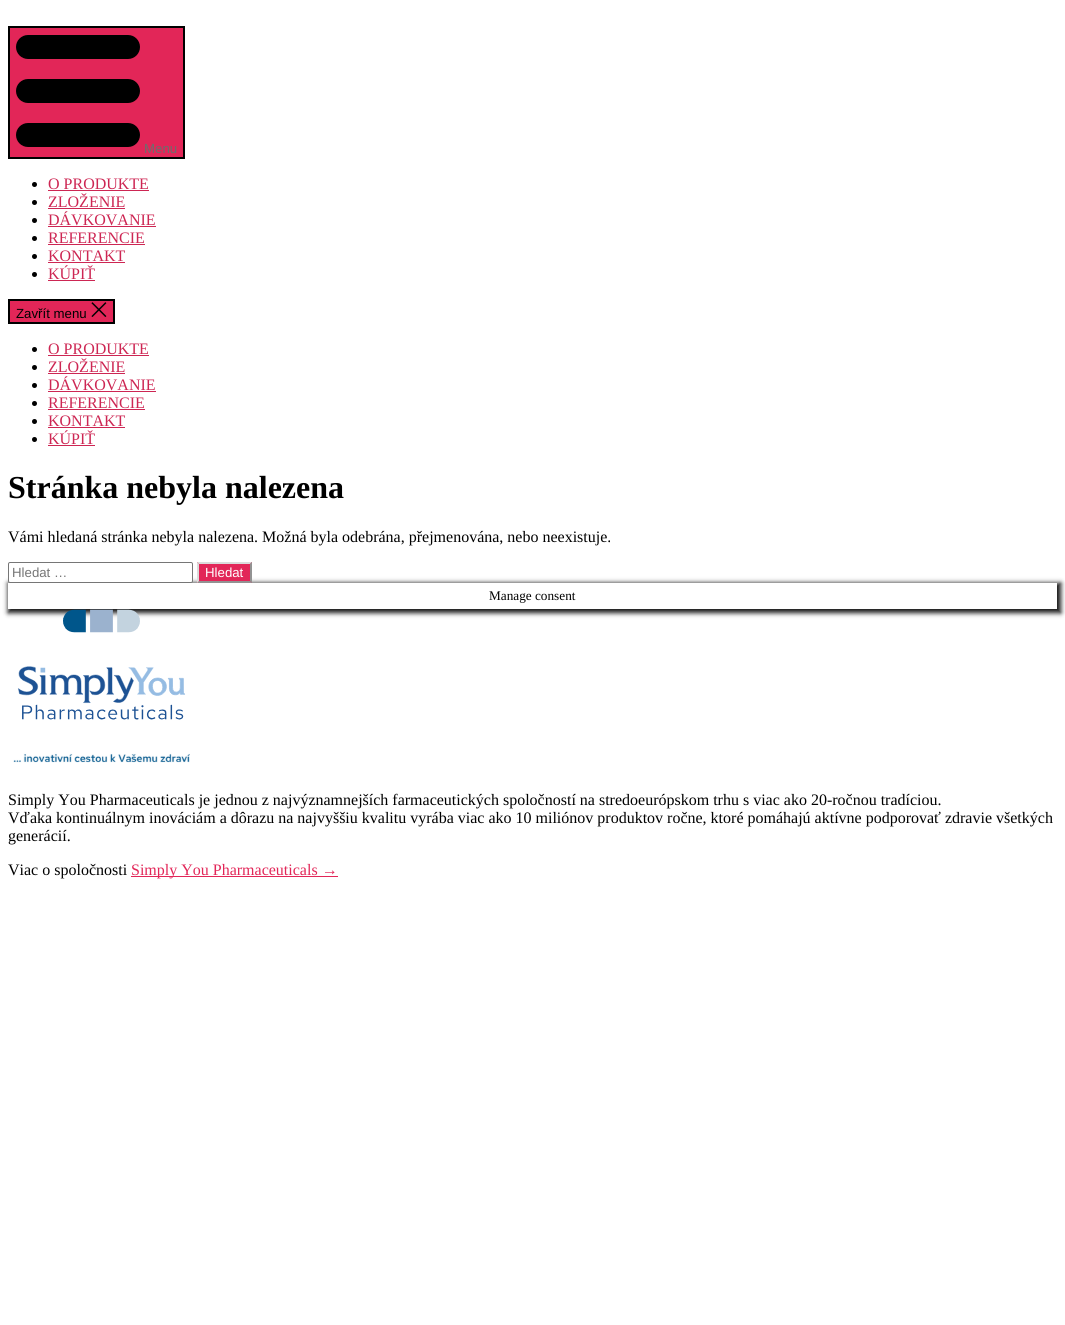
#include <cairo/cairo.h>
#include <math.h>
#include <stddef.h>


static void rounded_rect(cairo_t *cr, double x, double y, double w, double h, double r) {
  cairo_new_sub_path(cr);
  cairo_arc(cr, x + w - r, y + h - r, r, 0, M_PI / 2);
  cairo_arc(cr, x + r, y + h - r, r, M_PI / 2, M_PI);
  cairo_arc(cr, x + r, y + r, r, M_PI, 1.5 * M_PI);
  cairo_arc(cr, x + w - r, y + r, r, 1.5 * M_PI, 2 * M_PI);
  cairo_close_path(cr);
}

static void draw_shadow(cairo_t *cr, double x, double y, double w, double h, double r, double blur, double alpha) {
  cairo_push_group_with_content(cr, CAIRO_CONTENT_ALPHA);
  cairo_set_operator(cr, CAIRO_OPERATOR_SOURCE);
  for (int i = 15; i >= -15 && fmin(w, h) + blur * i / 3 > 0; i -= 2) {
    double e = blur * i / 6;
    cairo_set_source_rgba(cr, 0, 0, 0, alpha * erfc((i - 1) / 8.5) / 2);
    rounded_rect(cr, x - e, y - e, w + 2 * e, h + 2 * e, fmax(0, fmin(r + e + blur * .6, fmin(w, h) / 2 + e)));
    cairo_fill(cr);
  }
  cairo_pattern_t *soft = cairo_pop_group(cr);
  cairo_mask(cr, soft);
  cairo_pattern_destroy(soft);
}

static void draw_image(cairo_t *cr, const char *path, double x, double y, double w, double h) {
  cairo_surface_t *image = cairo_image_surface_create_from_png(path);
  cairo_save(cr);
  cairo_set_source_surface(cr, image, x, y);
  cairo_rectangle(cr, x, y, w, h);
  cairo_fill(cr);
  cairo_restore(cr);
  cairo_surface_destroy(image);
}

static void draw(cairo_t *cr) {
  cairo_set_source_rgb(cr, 1, 1, 1);
  cairo_paint(cr);
  cairo_set_source_rgb(cr, 226 / 255.0, 38 / 255.0, 88 / 255.0);
  cairo_rectangle(cr, 9, 27, 175, 131);
  cairo_fill_preserve(cr);
  cairo_set_source_rgb(cr, 0, 0, 0);
  cairo_stroke(cr);
  draw_image(cr, "images/1.png", 16, 35, 124, 112);
  cairo_arc(cr, 34.5, 184.5, 2.5, 0, 2 * M_PI);
  cairo_fill(cr);
  cairo_set_source_rgb(cr, 205 / 255.0, 38 / 255.0, 83 / 255.0);
  cairo_rectangle(cr, 48, 190, 101, 1);
  cairo_fill(cr);
  cairo_set_source_rgb(cr, 0, 0, 0);
  cairo_arc(cr, 34.5, 202.5, 2.5, 0, 2 * M_PI);
  cairo_fill(cr);
  cairo_set_source_rgb(cr, 205 / 255.0, 38 / 255.0, 83 / 255.0);
  cairo_rectangle(cr, 48, 208, 77, 1);
  cairo_fill(cr);
  cairo_set_source_rgb(cr, 0, 0, 0);
  cairo_arc(cr, 34.5, 220.5, 2.5, 0, 2 * M_PI);
  cairo_fill(cr);
  cairo_set_source_rgb(cr, 205 / 255.0, 38 / 255.0, 83 / 255.0);
  cairo_rectangle(cr, 48, 226, 108, 1);
  cairo_fill(cr);
  cairo_set_source_rgb(cr, 0, 0, 0);
  cairo_arc(cr, 34.5, 238.5, 2.5, 0, 2 * M_PI);
  cairo_fill(cr);
  cairo_set_source_rgb(cr, 205 / 255.0, 38 / 255.0, 83 / 255.0);
  cairo_rectangle(cr, 48, 244, 97, 1);
  cairo_fill(cr);
  cairo_set_source_rgb(cr, 0, 0, 0);
  cairo_arc(cr, 34.5, 256.5, 2.5, 0, 2 * M_PI);
  cairo_fill(cr);
  cairo_set_source_rgb(cr, 205 / 255.0, 38 / 255.0, 83 / 255.0);
  cairo_rectangle(cr, 48, 262, 77, 1);
  cairo_fill(cr);
  cairo_set_source_rgb(cr, 0, 0, 0);
  cairo_arc(cr, 34.5, 274.5, 2.5, 0, 2 * M_PI);
  cairo_fill(cr);
  cairo_set_source_rgb(cr, 205 / 255.0, 38 / 255.0, 83 / 255.0);
  cairo_rectangle(cr, 48, 280, 47, 1);
  cairo_fill(cr);
  cairo_set_source_rgb(cr, 226 / 255.0, 38 / 255.0, 88 / 255.0);
  cairo_rectangle(cr, 9, 300, 105, 23);
  cairo_fill_preserve(cr);
  cairo_set_source_rgb(cr, 0, 0, 0);
  cairo_stroke(cr);
  draw_image(cr, "images/2.png", 91, 302, 16, 15);
  cairo_arc(cr, 34.5, 349.5, 2.5, 0, 2 * M_PI);
  cairo_fill(cr);
  cairo_set_source_rgb(cr, 205 / 255.0, 38 / 255.0, 83 / 255.0);
  cairo_rectangle(cr, 48, 355, 101, 1);
  cairo_fill(cr);
  cairo_set_source_rgb(cr, 0, 0, 0);
  cairo_arc(cr, 34.5, 367.5, 2.5, 0, 2 * M_PI);
  cairo_fill(cr);
  cairo_set_source_rgb(cr, 205 / 255.0, 38 / 255.0, 83 / 255.0);
  cairo_rectangle(cr, 48, 373, 77, 1);
  cairo_fill(cr);
  cairo_set_source_rgb(cr, 0, 0, 0);
  cairo_arc(cr, 34.5, 385.5, 2.5, 0, 2 * M_PI);
  cairo_fill(cr);
  cairo_set_source_rgb(cr, 205 / 255.0, 38 / 255.0, 83 / 255.0);
  cairo_rectangle(cr, 48, 391, 108, 1);
  cairo_fill(cr);
  cairo_set_source_rgb(cr, 0, 0, 0);
  cairo_arc(cr, 34.5, 403.5, 2.5, 0, 2 * M_PI);
  cairo_fill(cr);
  cairo_set_source_rgb(cr, 205 / 255.0, 38 / 255.0, 83 / 255.0);
  cairo_rectangle(cr, 48, 409, 97, 1);
  cairo_fill(cr);
  cairo_set_source_rgb(cr, 0, 0, 0);
  cairo_arc(cr, 34.5, 421.5, 2.5, 0, 2 * M_PI);
  cairo_fill(cr);
  cairo_set_source_rgb(cr, 205 / 255.0, 38 / 255.0, 83 / 255.0);
  cairo_rectangle(cr, 48, 427, 77, 1);
  cairo_fill(cr);
  cairo_set_source_rgb(cr, 0, 0, 0);
  cairo_arc(cr, 34.5, 439.5, 2.5, 0, 2 * M_PI);
  cairo_fill(cr);
  cairo_set_source_rgb(cr, 205 / 255.0, 38 / 255.0, 83 / 255.0);
  cairo_rectangle(cr, 48, 445, 47, 1);
  cairo_fill(cr);
  cairo_save(cr);
  cairo_set_fill_rule(cr, CAIRO_FILL_RULE_EVEN_ODD);
  cairo_new_path(cr);
  cairo_move_to(cr, 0, 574);
  cairo_line_to(cr, 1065, 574);
  cairo_line_to(cr, 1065, 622);
  cairo_line_to(cr, 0, 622);
  cairo_close_path(cr);
  cairo_move_to(cr, 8, 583);
  cairo_line_to(cr, 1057, 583);
  cairo_line_to(cr, 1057, 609);
  cairo_line_to(cr, 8, 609);
  cairo_close_path(cr);
  cairo_clip(cr);
  cairo_set_source_rgb(cr, 22 / 255.0, 22 / 255.0, 22 / 255.0);
  draw_shadow(cr, 8, 583, 1053, 30, 0, 2.5, 1);
  cairo_restore(cr);
  cairo_set_source_rgb(cr, 1, 1, 1);
  rounded_rect(cr, 8.5, 562.5, 184, 20, 1.5);
  cairo_fill_preserve(cr);
  cairo_set_source_rgb(cr, 118 / 255.0, 118 / 255.0, 118 / 255.0);
  cairo_set_line_width(cr, 1);
  cairo_stroke(cr);
  cairo_set_source_rgb(cr, 226 / 255.0, 38 / 255.0, 88 / 255.0);
  cairo_rectangle(cr, 197, 562, 55, 21);
  cairo_fill(cr);
  cairo_set_source_rgb(cr, 219 / 255.0, 219 / 255.0, 219 / 255.0);
  cairo_new_path(cr);
  cairo_move_to(cr, 197, 562);
  cairo_line_to(cr, 252, 562);
  cairo_line_to(cr, 250, 564);
  cairo_line_to(cr, 199, 564);
  cairo_close_path(cr);
  cairo_fill(cr);
  cairo_set_source_rgb(cr, 146 / 255.0, 146 / 255.0, 146 / 255.0);
  cairo_new_path(cr);
  cairo_move_to(cr, 252, 562);
  cairo_line_to(cr, 252, 583);
  cairo_line_to(cr, 250, 581);
  cairo_line_to(cr, 250, 564);
  cairo_close_path(cr);
  cairo_fill(cr);
  cairo_new_path(cr);
  cairo_move_to(cr, 252, 583);
  cairo_line_to(cr, 197, 583);
  cairo_line_to(cr, 199, 581);
  cairo_line_to(cr, 250, 581);
  cairo_close_path(cr);
  cairo_fill(cr);
  cairo_set_source_rgb(cr, 219 / 255.0, 219 / 255.0, 219 / 255.0);
  cairo_new_path(cr);
  cairo_move_to(cr, 197, 583);
  cairo_line_to(cr, 197, 562);
  cairo_line_to(cr, 199, 564);
  cairo_line_to(cr, 199, 581);
  cairo_close_path(cr);
  cairo_fill(cr);
  draw_image(cr, "images/3.png", 13, 609, 177, 154);
  cairo_set_source_rgb(cr, 226 / 255.0, 38 / 255.0, 88 / 255.0);
  cairo_rectangle(cr, 131, 876, 207, 1);
  cairo_fill(cr);
  cairo_select_font_face(cr, "Liberation Sans", CAIRO_FONT_SLANT_NORMAL, CAIRO_FONT_WEIGHT_NORMAL);
  cairo_set_font_size(cr, 13.25);
  cairo_set_source_rgb(cr, 109 / 255.0, 109 / 255.0, 109 / 255.0);
  cairo_move_to(cr, 144, 153);
  cairo_show_text(cr, "Menu");
  cairo_select_font_face(cr, "Liberation Serif", CAIRO_FONT_SLANT_NORMAL, CAIRO_FONT_WEIGHT_NORMAL);
  cairo_set_font_size(cr, 16);
  cairo_set_source_rgb(cr, 205 / 255.0, 38 / 255.0, 83 / 255.0);
  cairo_move_to(cr, 48, 189);
  cairo_show_text(cr, "O PRODUKTE");
  cairo_move_to(cr, 48, 207);
  cairo_show_text(cr, "ZLOŽENIE");
  cairo_move_to(cr, 48, 225);
  cairo_show_text(cr, "DÁVKOVANIE");
  cairo_move_to(cr, 48, 243);
  cairo_show_text(cr, "REFERENCIE");
  cairo_move_to(cr, 48, 261);
  cairo_show_text(cr, "KONTAKT");
  cairo_move_to(cr, 48, 279);
  cairo_show_text(cr, "KÚPIŤ");
  cairo_select_font_face(cr, "Liberation Sans", CAIRO_FONT_SLANT_NORMAL, CAIRO_FONT_WEIGHT_NORMAL);
  cairo_set_font_size(cr, 13.25);
  cairo_set_source_rgb(cr, 0, 0, 0);
  cairo_move_to(cr, 16, 318);
  cairo_show_text(cr, "Zavřít menu");
  cairo_select_font_face(cr, "Liberation Serif", CAIRO_FONT_SLANT_NORMAL, CAIRO_FONT_WEIGHT_NORMAL);
  cairo_set_font_size(cr, 16);
  cairo_set_source_rgb(cr, 205 / 255.0, 38 / 255.0, 83 / 255.0);
  cairo_move_to(cr, 48, 354);
  cairo_show_text(cr, "O PRODUKTE");
  cairo_move_to(cr, 48, 372);
  cairo_show_text(cr, "ZLOŽENIE");
  cairo_move_to(cr, 48, 390);
  cairo_show_text(cr, "DÁVKOVANIE");
  cairo_move_to(cr, 48, 408);
  cairo_show_text(cr, "REFERENCIE");
  cairo_move_to(cr, 48, 426);
  cairo_show_text(cr, "KONTAKT");
  cairo_move_to(cr, 48, 444);
  cairo_show_text(cr, "KÚPIŤ");
  cairo_select_font_face(cr, "Liberation Serif", CAIRO_FONT_SLANT_NORMAL, CAIRO_FONT_WEIGHT_BOLD);
  cairo_set_font_size(cr, 32);
  cairo_set_source_rgb(cr, 0, 0, 0);
  cairo_move_to(cr, 8, 498);
  cairo_show_text(cr, "Stránka nebyla nalezena");
  cairo_select_font_face(cr, "Liberation Serif", CAIRO_FONT_SLANT_NORMAL, CAIRO_FONT_WEIGHT_NORMAL);
  cairo_set_font_size(cr, 16);
  cairo_move_to(cr, 8, 542);
  cairo_show_text(cr, "Vámi hledaná stránka nebyla nalezena. Možná byla odebrána, přejmenována, nebo neexistuje.");
  cairo_select_font_face(cr, "Liberation Sans", CAIRO_FONT_SLANT_NORMAL, CAIRO_FONT_WEIGHT_NORMAL);
  cairo_set_font_size(cr, 13.25);
  cairo_set_source_rgb(cr, 117 / 255.0, 117 / 255.0, 117 / 255.0);
  cairo_move_to(cr, 12, 577);
  cairo_show_text(cr, "Hledat …");
  cairo_set_source_rgb(cr, 1, 1, 1);
  cairo_move_to(cr, 205, 577);
  cairo_show_text(cr, "Hledat");
  cairo_select_font_face(cr, "Liberation Serif", CAIRO_FONT_SLANT_NORMAL, CAIRO_FONT_WEIGHT_NORMAL);
  cairo_set_source_rgb(cr, 0, 0, 0);
  cairo_move_to(cr, 489, 600);
  cairo_show_text(cr, "Manage consent");
  cairo_set_font_size(cr, 16);
  cairo_move_to(cr, 8, 805);
  cairo_show_text(cr, "Simply You Pharmaceuticals je jednou z najvýznamnejších farmaceutických spoločností na stredoeurópskom trhu s viac ako 20-ročnou tradíciou.");
  cairo_move_to(cr, 8, 823);
  cairo_show_text(cr, "Vďaka kontinuálnym inováciám a dôrazu na najvyššiu kvalitu vyrába viac ako 10 miliónov produktov ročne, ktoré pomáhajú aktívne podporovať zdravie všetkých");
  cairo_move_to(cr, 8, 841);
  cairo_show_text(cr, "generácií.");
  cairo_move_to(cr, 8, 875);
  cairo_show_text(cr, "Viac o spoločnosti");
  cairo_set_source_rgb(cr, 226 / 255.0, 38 / 255.0, 88 / 255.0);
  cairo_move_to(cr, 131, 875);
  cairo_show_text(cr, "Simply You Pharmaceuticals →");
}

int main(void) {
  cairo_surface_t *surface = cairo_image_surface_create(CAIRO_FORMAT_RGB24, 1065, 1325);
  cairo_t *cr = cairo_create(surface);
  cairo_font_options_t *options = cairo_font_options_create();
  cairo_font_options_set_hint_metrics(options, CAIRO_HINT_METRICS_OFF);
  cairo_font_options_set_hint_style(options, CAIRO_HINT_STYLE_NONE);
  cairo_set_font_options(cr, options);
  cairo_set_miter_limit(cr, 4);
  draw(cr);
  cairo_surface_write_to_png(surface, "out.png");
  cairo_font_options_destroy(options);
  cairo_destroy(cr);
  cairo_surface_destroy(surface);
  return 0;
}
